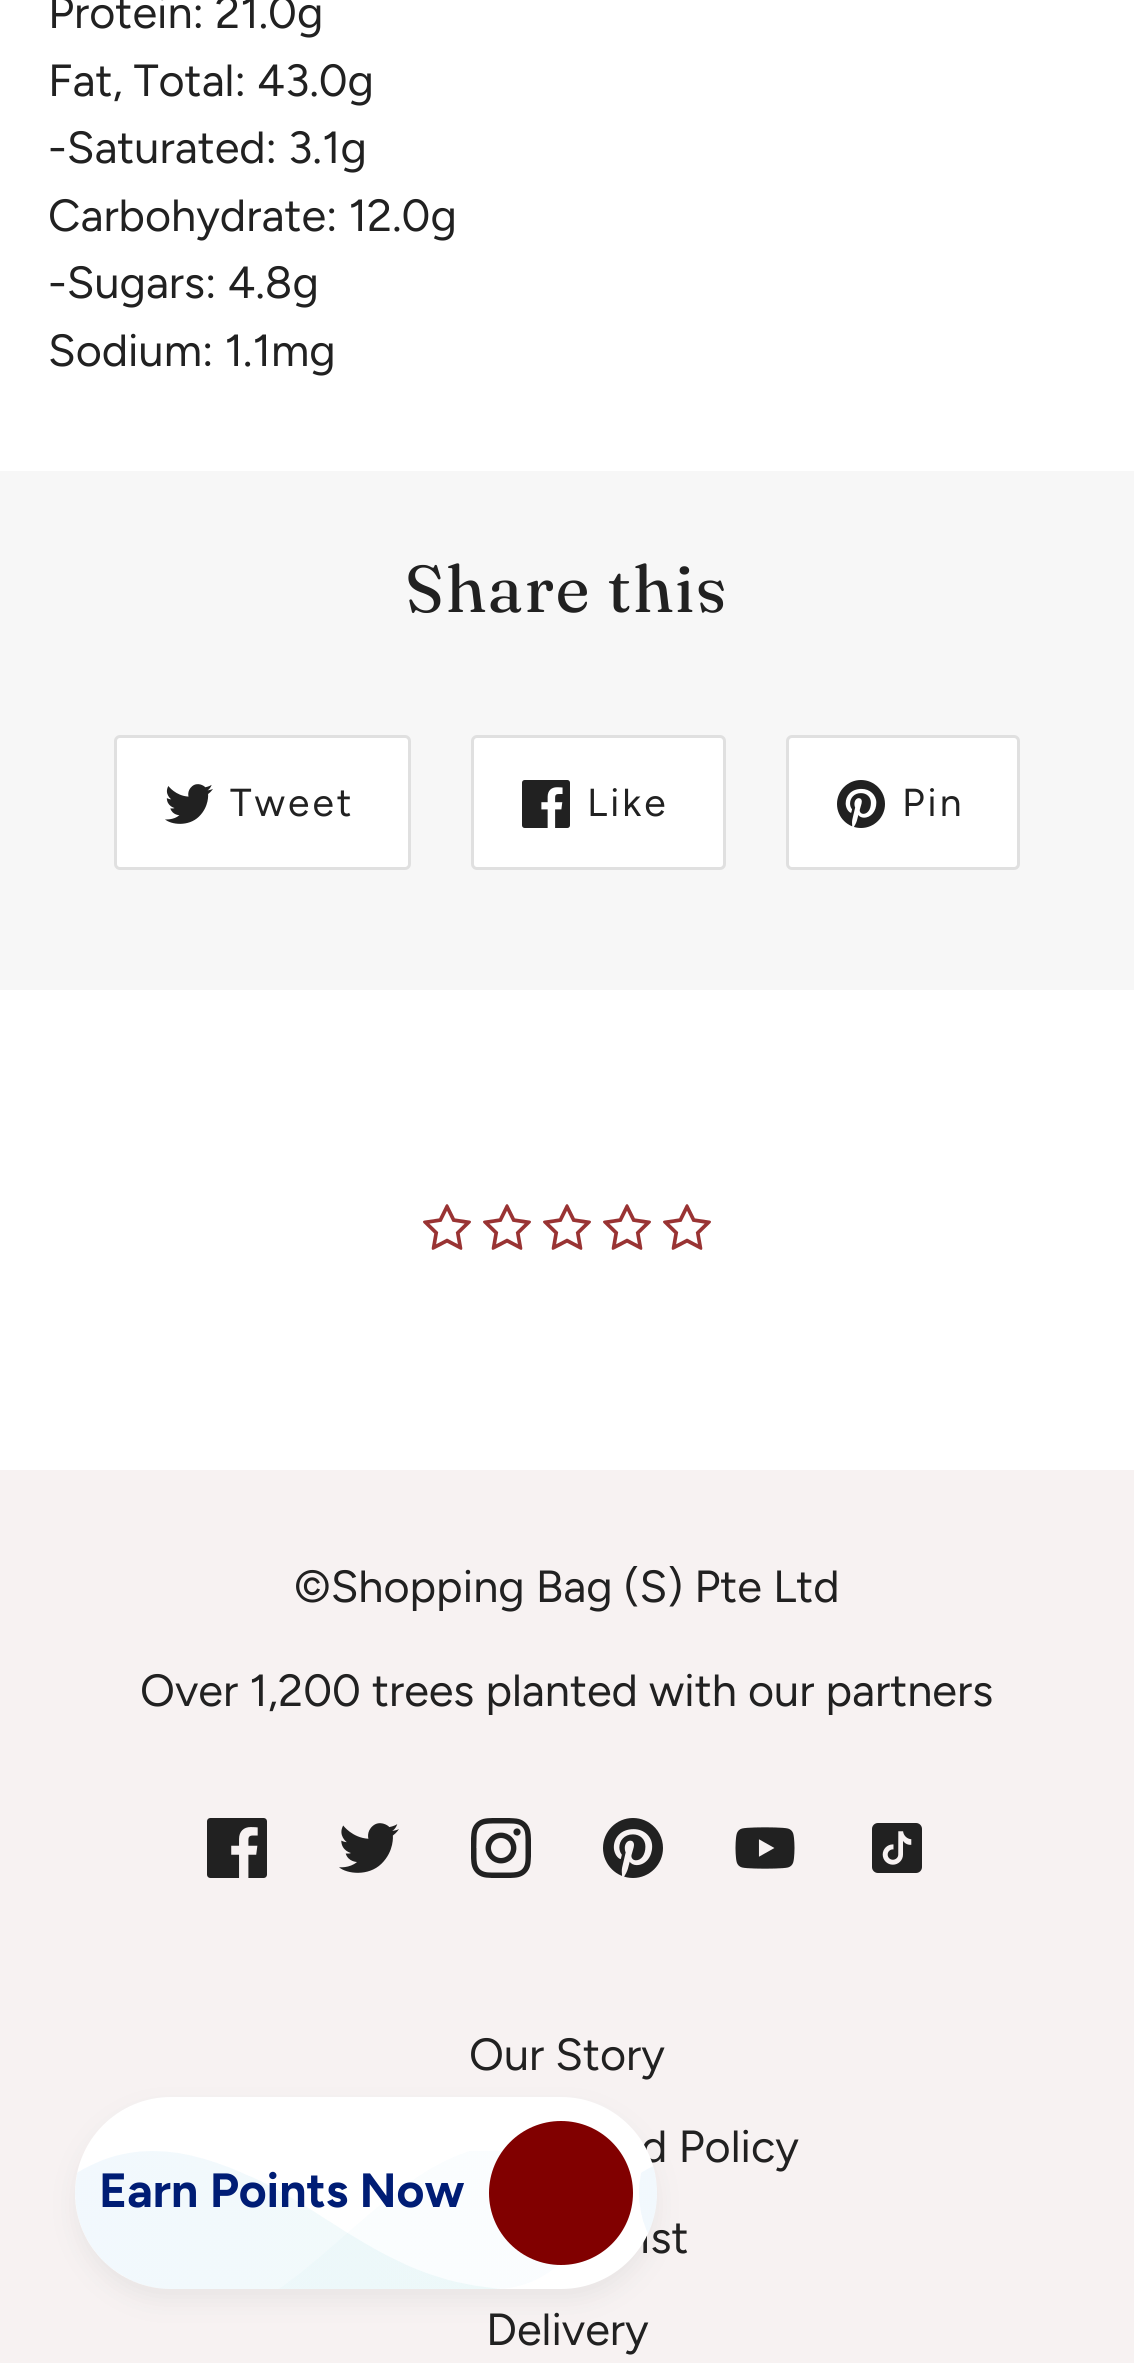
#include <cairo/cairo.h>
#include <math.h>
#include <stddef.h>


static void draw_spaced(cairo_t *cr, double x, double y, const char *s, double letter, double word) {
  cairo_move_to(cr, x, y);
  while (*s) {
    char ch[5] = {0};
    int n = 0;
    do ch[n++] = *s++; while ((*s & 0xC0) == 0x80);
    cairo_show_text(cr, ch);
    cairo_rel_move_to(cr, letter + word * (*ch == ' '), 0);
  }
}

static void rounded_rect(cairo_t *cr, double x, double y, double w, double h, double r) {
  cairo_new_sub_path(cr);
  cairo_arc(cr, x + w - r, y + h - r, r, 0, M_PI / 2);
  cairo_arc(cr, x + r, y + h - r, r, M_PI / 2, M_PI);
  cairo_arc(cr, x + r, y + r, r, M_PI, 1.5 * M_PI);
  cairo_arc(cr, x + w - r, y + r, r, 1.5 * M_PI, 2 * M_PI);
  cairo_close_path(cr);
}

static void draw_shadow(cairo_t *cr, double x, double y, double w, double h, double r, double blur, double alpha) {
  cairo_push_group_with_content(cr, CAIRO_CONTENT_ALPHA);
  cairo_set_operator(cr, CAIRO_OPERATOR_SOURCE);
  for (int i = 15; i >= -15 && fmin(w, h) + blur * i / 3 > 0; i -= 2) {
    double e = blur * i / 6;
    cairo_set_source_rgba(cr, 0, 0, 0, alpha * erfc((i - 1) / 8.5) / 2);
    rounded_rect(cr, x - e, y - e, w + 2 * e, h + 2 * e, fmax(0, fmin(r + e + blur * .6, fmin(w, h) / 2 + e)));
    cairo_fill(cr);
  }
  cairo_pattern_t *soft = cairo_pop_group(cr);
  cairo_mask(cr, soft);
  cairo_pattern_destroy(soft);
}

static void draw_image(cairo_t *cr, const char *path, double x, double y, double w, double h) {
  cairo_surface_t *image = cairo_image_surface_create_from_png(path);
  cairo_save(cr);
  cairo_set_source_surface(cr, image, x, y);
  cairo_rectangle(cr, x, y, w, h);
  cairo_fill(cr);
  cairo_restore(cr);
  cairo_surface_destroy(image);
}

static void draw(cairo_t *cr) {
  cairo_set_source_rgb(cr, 1, 1, 1);
  cairo_paint(cr);
  cairo_set_source_rgb(cr, 247 / 255.0, 247 / 255.0, 247 / 255.0);
  cairo_rectangle(cr, 0, 471, 1134, 519);
  cairo_fill(cr);
  cairo_set_source_rgb(cr, 1, 1, 1);
  rounded_rect(cr, 115.5, 736.5, 294, 132, 4.5);
  cairo_fill_preserve(cr);
  cairo_set_source_rgb(cr, 224 / 255.0, 224 / 255.0, 224 / 255.0);
  cairo_set_line_width(cr, 3);
  cairo_stroke(cr);
  draw_image(cr, "images/1.png", 165, 784, 48, 40);
  cairo_set_source_rgb(cr, 1, 1, 1);
  rounded_rect(cr, 472.5, 736.5, 252, 132, 4.5);
  cairo_fill_preserve(cr);
  cairo_set_source_rgb(cr, 224 / 255.0, 224 / 255.0, 224 / 255.0);
  cairo_stroke(cr);
  draw_image(cr, "images/2.png", 522, 780, 48, 48);
  cairo_set_source_rgb(cr, 1, 1, 1);
  rounded_rect(cr, 787.5, 736.5, 231, 132, 4.5);
  cairo_fill_preserve(cr);
  cairo_set_source_rgb(cr, 224 / 255.0, 224 / 255.0, 224 / 255.0);
  cairo_stroke(cr);
  draw_image(cr, "images/3.png", 837, 780, 48, 48);
  draw_image(cr, "images/4.png", 423, 1204, 48, 46);
  draw_image(cr, "images/4.png", 483, 1204, 48, 46);
  draw_image(cr, "images/4.png", 543, 1204, 48, 46);
  draw_image(cr, "images/4.png", 603, 1204, 48, 46);
  draw_image(cr, "images/4.png", 663, 1204, 48, 46);
  cairo_set_source_rgb(cr, 247 / 255.0, 242 / 255.0, 242 / 255.0);
  cairo_rectangle(cr, 0, 1470, 1134, 893);
  cairo_fill(cr);
  draw_image(cr, "images/5.png", 207, 1818, 60, 60);
  draw_image(cr, "images/6.png", 339, 1823, 60, 50);
  draw_image(cr, "images/7.png", 471, 1818, 60, 60);
  draw_image(cr, "images/8.png", 603, 1818, 60, 60);
  draw_image(cr, "images/9.png", 735, 1827, 60, 42);
  draw_image(cr, "images/10.png", 872, 1823, 50, 50);
  cairo_set_source_rgb(cr, 191 / 255.0, 191 / 255.0, 191 / 255.0);
  draw_shadow(cr, 75, 2109, 582, 192, 96, 12, 0.25);
  cairo_select_font_face(cr, "Figtree", CAIRO_FONT_SLANT_NORMAL, CAIRO_FONT_WEIGHT_NORMAL);
  cairo_set_font_size(cr, 45);
  cairo_set_source_rgb(cr, 33 / 255.0, 33 / 255.0, 33 / 255.0);
  cairo_move_to(cr, 48, 28);
  cairo_show_text(cr, "Protein: 21.0g");
  cairo_move_to(cr, 48, 96);
  cairo_show_text(cr, "Fat, Total: 43.0g");
  cairo_move_to(cr, 48, 163);
  cairo_show_text(cr, "-Saturated: 3.1g");
  cairo_move_to(cr, 48, 231);
  cairo_show_text(cr, "Carbohydrate: 12.0g");
  cairo_move_to(cr, 48, 298);
  cairo_show_text(cr, "-Sugars: 4.8g");
  cairo_move_to(cr, 48, 366);
  cairo_show_text(cr, "Sodium: 1.1mg");
  cairo_select_font_face(cr, "Fraunces", CAIRO_FONT_SLANT_NORMAL, CAIRO_FONT_WEIGHT_NORMAL);
  cairo_set_font_size(cr, 66);
  draw_spaced(cr, 405, 612, "Share this", 1.6, 0);
  cairo_select_font_face(cr, "Figtree", CAIRO_FONT_SLANT_NORMAL, CAIRO_FONT_WEIGHT_NORMAL);
  cairo_set_font_size(cr, 39);
  draw_spaced(cr, 230, 816, "Tweet", 3, 0);
  draw_spaced(cr, 587, 816, "Like", 3, 0);
  draw_spaced(cr, 902, 816, "Pin", 3, 0);
  cairo_set_font_size(cr, 45);
  cairo_move_to(cr, 294, 1602);
  cairo_show_text(cr, "©Shopping Bag (S) Pte Ltd");
  cairo_move_to(cr, 140, 1706);
  cairo_show_text(cr, "Over 1,200 trees planted with our partners");
  cairo_move_to(cr, 469, 2070);
  cairo_show_text(cr, "Our Story");
  cairo_move_to(cr, 641, 2162);
  cairo_show_text(cr, "d Policy");
  cairo_move_to(cr, 640, 2253);
  cairo_show_text(cr, "ist");
  cairo_move_to(cr, 486, 2345);
  cairo_show_text(cr, "Delivery");
  cairo_set_source_rgb(cr, 1, 1, 1);
  rounded_rect(cr, 75, 2097, 582, 192, 96);
  cairo_fill(cr);
  draw_image(cr, "images/11.png", 75, 2151, 582, 138);
  cairo_select_font_face(cr, "Figtree", CAIRO_FONT_SLANT_NORMAL, CAIRO_FONT_WEIGHT_BOLD);
  cairo_set_font_size(cr, 48);
  cairo_set_source_rgb(cr, 0, 29 / 255.0, 117 / 255.0);
  cairo_move_to(cr, 99, 2207);
  cairo_show_text(cr, "Earn Points Now");
  cairo_set_source_rgb(cr, 129 / 255.0, 0, 0);
  cairo_new_path(cr);
  cairo_arc(cr, 561, 2193, 72, 0, 2 * M_PI);
  cairo_fill(cr);
}

int main(void) {
  cairo_surface_t *surface = cairo_image_surface_create(CAIRO_FORMAT_RGB24, 1134, 2363);
  cairo_t *cr = cairo_create(surface);
  cairo_font_options_t *options = cairo_font_options_create();
  cairo_font_options_set_hint_metrics(options, CAIRO_HINT_METRICS_OFF);
  cairo_font_options_set_hint_style(options, CAIRO_HINT_STYLE_NONE);
  cairo_set_font_options(cr, options);
  cairo_set_miter_limit(cr, 4);
  draw(cr);
  cairo_surface_write_to_png(surface, "out.png");
  cairo_font_options_destroy(options);
  cairo_destroy(cr);
  cairo_surface_destroy(surface);
  return 0;
}
